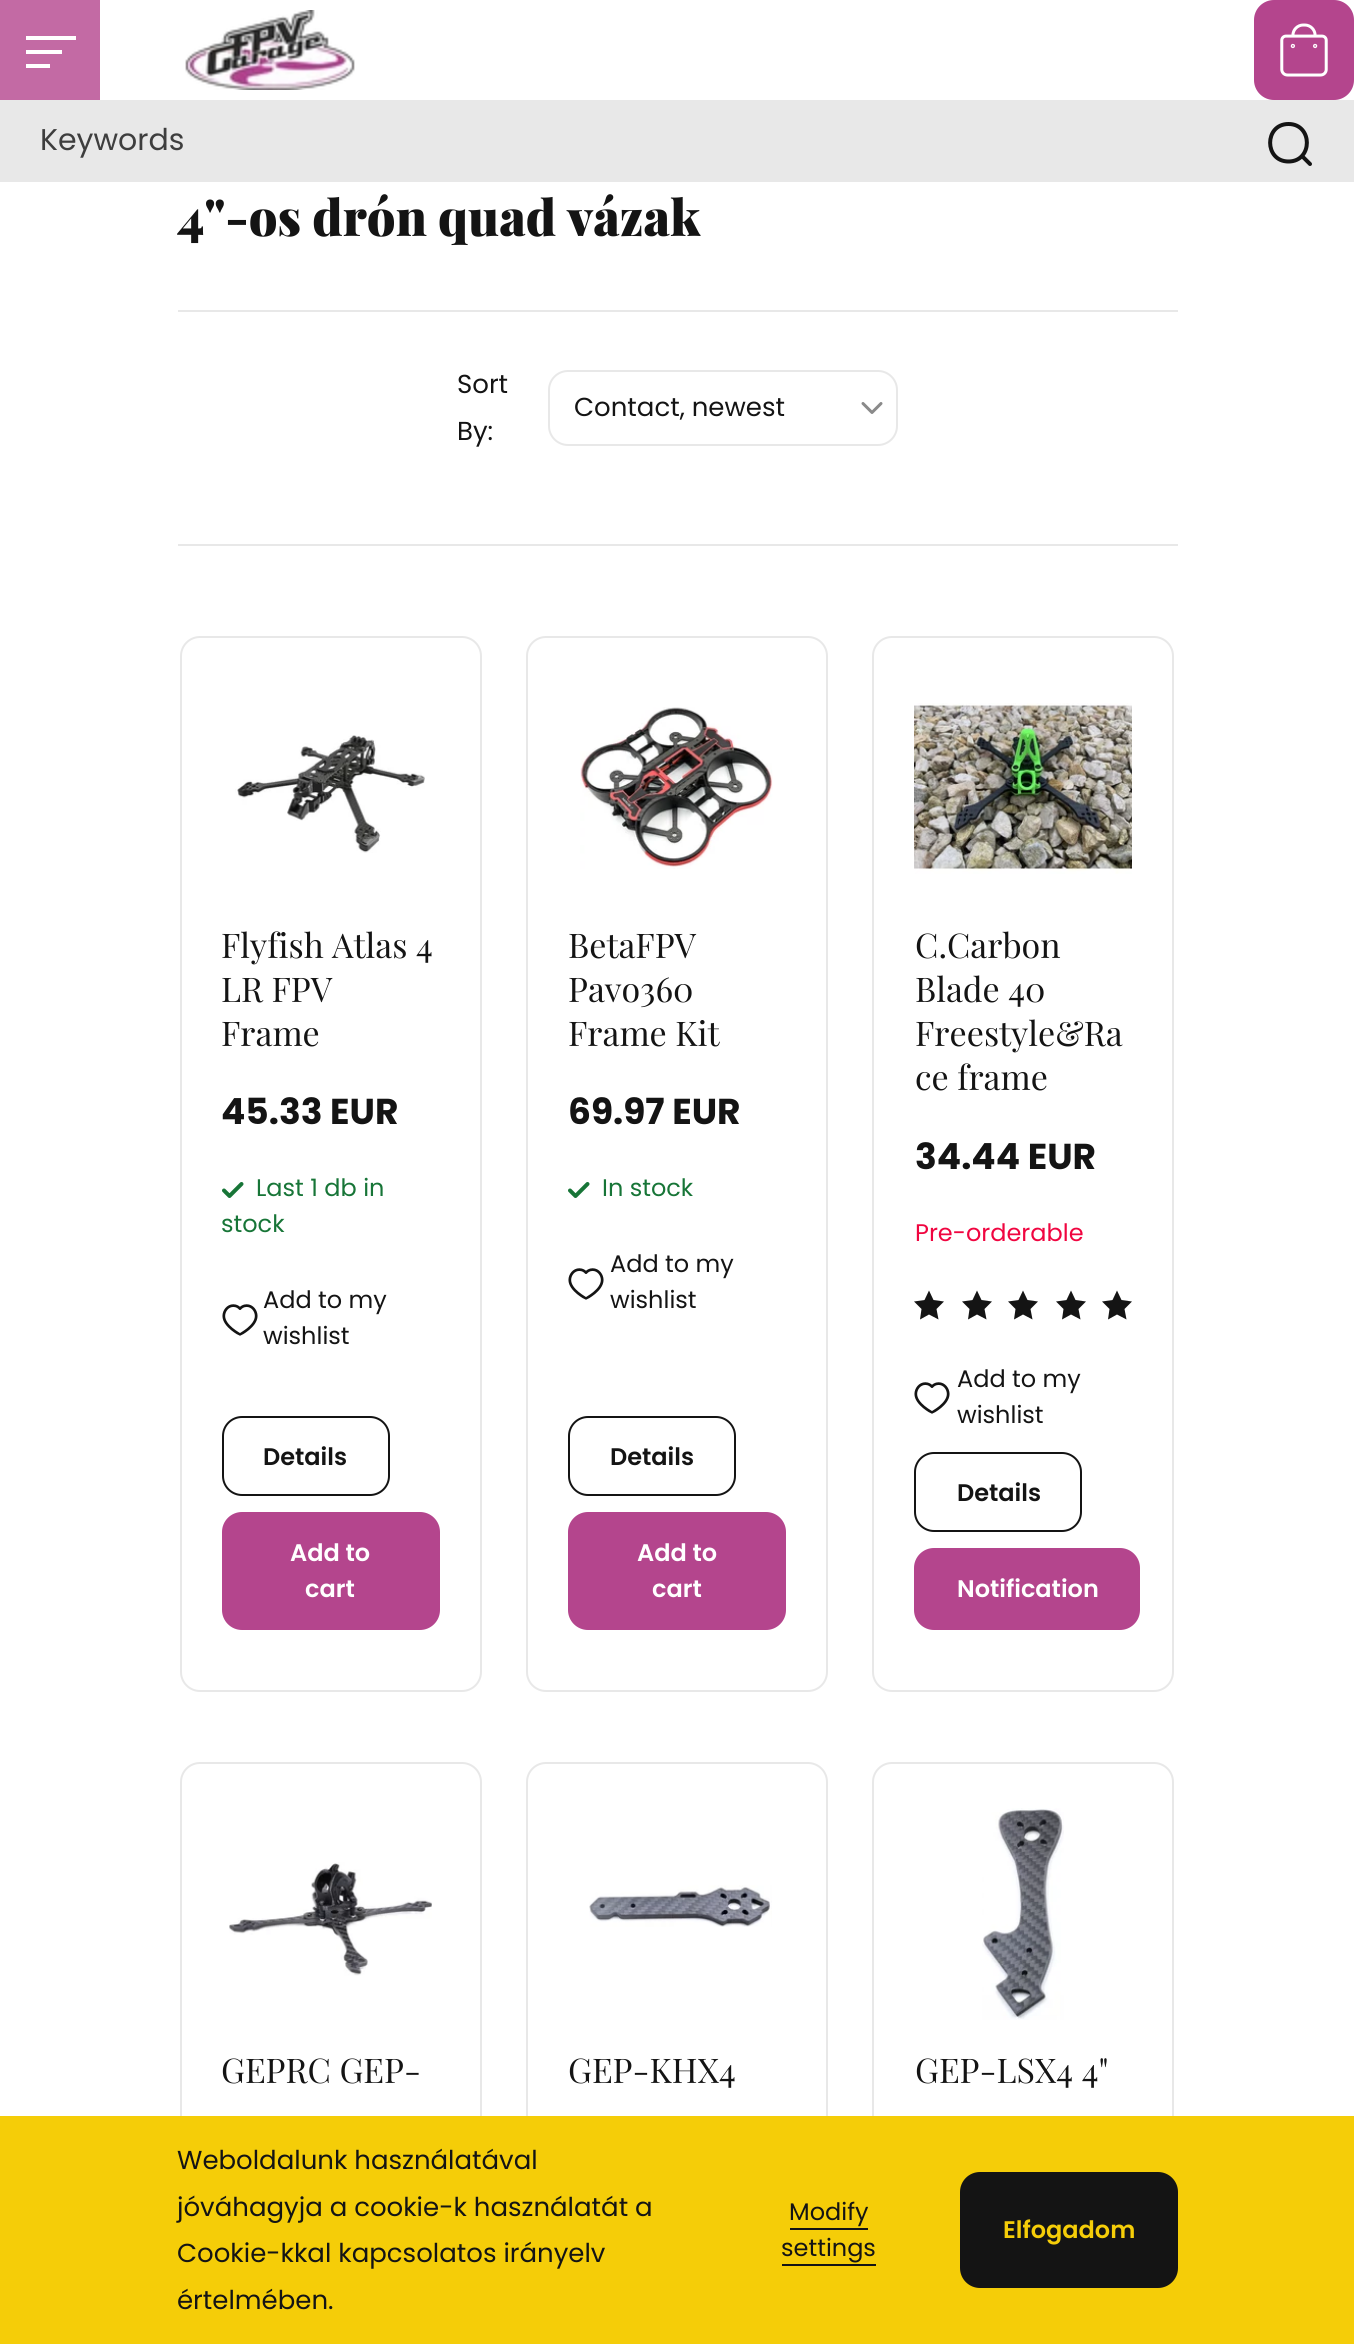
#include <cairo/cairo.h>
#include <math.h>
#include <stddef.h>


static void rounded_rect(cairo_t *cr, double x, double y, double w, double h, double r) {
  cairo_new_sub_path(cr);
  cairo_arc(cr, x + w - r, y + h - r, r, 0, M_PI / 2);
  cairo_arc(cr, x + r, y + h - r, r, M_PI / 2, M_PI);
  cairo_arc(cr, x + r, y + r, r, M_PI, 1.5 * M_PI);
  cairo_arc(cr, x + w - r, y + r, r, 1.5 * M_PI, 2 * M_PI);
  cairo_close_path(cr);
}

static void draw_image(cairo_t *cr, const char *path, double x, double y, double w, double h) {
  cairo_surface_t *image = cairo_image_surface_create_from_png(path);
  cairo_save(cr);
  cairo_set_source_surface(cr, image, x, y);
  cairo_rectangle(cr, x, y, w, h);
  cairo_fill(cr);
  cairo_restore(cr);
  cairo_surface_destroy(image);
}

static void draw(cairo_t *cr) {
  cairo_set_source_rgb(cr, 1, 1, 1);
  cairo_paint(cr);
  cairo_set_source_rgb(cr, 195 / 255.0, 106 / 255.0, 164 / 255.0);
  cairo_rectangle(cr, 0, 0, 100, 100);
  cairo_fill(cr);
  cairo_set_source_rgb(cr, 1, 1, 1);
  cairo_rectangle(cr, 26, 36, 50, 4);
  cairo_fill(cr);
  cairo_rectangle(cr, 26, 50, 36, 4);
  cairo_fill(cr);
  cairo_rectangle(cr, 26, 64, 24, 4);
  cairo_fill(cr);
  draw_image(cr, "images/1.png", 185, 10, 170, 80);
  cairo_set_source_rgb(cr, 180 / 255.0, 69 / 255.0, 141 / 255.0);
  rounded_rect(cr, 1255, 1, 98, 98, 19);
  cairo_fill_preserve(cr);
  cairo_stroke(cr);
  draw_image(cr, "images/2.png", 1280, 23, 48, 54);
  cairo_set_source_rgb(cr, 232 / 255.0, 232 / 255.0, 232 / 255.0);
  cairo_rectangle(cr, 0, 100, 1354, 82);
  cairo_fill(cr);
  cairo_new_path(cr);
  cairo_move_to(cr, 1310, 164);
  cairo_line_to(cr, 1302, 156);
  cairo_move_to(cr, 1288.5, 161.5);
  cairo_curve_to(cr, 1264, 161.5, 1264, 124, 1288.5, 124);
  cairo_curve_to(cr, 1313, 124, 1313, 161.5, 1288.5, 161.5);
  cairo_close_path(cr);
  cairo_set_source_rgb(cr, 20 / 255.0, 20 / 255.0, 20 / 255.0);
  cairo_set_line_width(cr, 4);
  cairo_set_line_cap(cr, CAIRO_LINE_CAP_ROUND);
  cairo_set_line_join(cr, CAIRO_LINE_JOIN_ROUND);
  cairo_stroke(cr);
  cairo_set_source_rgb(cr, 232 / 255.0, 232 / 255.0, 232 / 255.0);
  cairo_rectangle(cr, 178, 310, 1000, 2);
  cairo_fill(cr);
  cairo_rectangle(cr, 178, 544, 1000, 2);
  cairo_fill(cr);
  cairo_new_path(cr);
  cairo_move_to(cr, 863, 403.5);
  cairo_line_to(cr, 872, 412.5);
  cairo_line_to(cr, 881, 403.5);
  cairo_set_source_rgb(cr, 138 / 255.0, 138 / 255.0, 138 / 255.0);
  cairo_set_line_width(cr, 3);
  cairo_stroke(cr);
  rounded_rect(cr, 549, 371, 348, 74, 19);
  cairo_set_source_rgb(cr, 232 / 255.0, 232 / 255.0, 232 / 255.0);
  cairo_set_line_width(cr, 2);
  cairo_set_line_cap(cr, CAIRO_LINE_CAP_BUTT);
  cairo_set_line_join(cr, CAIRO_LINE_JOIN_MITER);
  cairo_stroke(cr);
  rounded_rect(cr, 181, 637, 300, 1054, 19);
  cairo_stroke(cr);
  draw_image(cr, "images/3.png", 235, 735, 190, 118);
  cairo_new_path(cr);
  cairo_move_to(cr, 241.5, 1184);
  cairo_line_to(cr, 229.5, 1196);
  cairo_line_to(cr, 224, 1190.5);
  cairo_set_source_rgb(cr, 23 / 255.0, 117 / 255.0, 55 / 255.0);
  cairo_set_line_width(cr, 4);
  cairo_set_line_cap(cr, CAIRO_LINE_CAP_ROUND);
  cairo_set_line_join(cr, CAIRO_LINE_JOIN_ROUND);
  cairo_stroke(cr);
  draw_image(cr, "images/4.png", 222, 1304, 36, 32);
  rounded_rect(cr, 223, 1417, 166, 78, 19);
  cairo_set_source_rgb(cr, 20 / 255.0, 20 / 255.0, 20 / 255.0);
  cairo_set_line_width(cr, 2);
  cairo_set_line_cap(cr, CAIRO_LINE_CAP_BUTT);
  cairo_set_line_join(cr, CAIRO_LINE_JOIN_MITER);
  cairo_stroke(cr);
  cairo_set_source_rgb(cr, 180 / 255.0, 69 / 255.0, 141 / 255.0);
  rounded_rect(cr, 223, 1513, 216, 116, 19);
  cairo_fill_preserve(cr);
  cairo_stroke(cr);
  rounded_rect(cr, 527, 637, 300, 1054, 19);
  cairo_set_source_rgb(cr, 232 / 255.0, 232 / 255.0, 232 / 255.0);
  cairo_stroke(cr);
  draw_image(cr, "images/5.png", 580, 707, 193, 162);
  cairo_new_path(cr);
  cairo_move_to(cr, 587.5, 1184);
  cairo_line_to(cr, 575.5, 1196);
  cairo_line_to(cr, 570, 1190.5);
  cairo_set_source_rgb(cr, 23 / 255.0, 117 / 255.0, 55 / 255.0);
  cairo_set_line_width(cr, 4);
  cairo_set_line_cap(cr, CAIRO_LINE_CAP_ROUND);
  cairo_set_line_join(cr, CAIRO_LINE_JOIN_ROUND);
  cairo_stroke(cr);
  draw_image(cr, "images/4.png", 568, 1268, 36, 32);
  rounded_rect(cr, 569, 1417, 166, 78, 19);
  cairo_set_source_rgb(cr, 20 / 255.0, 20 / 255.0, 20 / 255.0);
  cairo_set_line_width(cr, 2);
  cairo_set_line_cap(cr, CAIRO_LINE_CAP_BUTT);
  cairo_set_line_join(cr, CAIRO_LINE_JOIN_MITER);
  cairo_stroke(cr);
  cairo_set_source_rgb(cr, 180 / 255.0, 69 / 255.0, 141 / 255.0);
  rounded_rect(cr, 569, 1513, 216, 116, 19);
  cairo_fill_preserve(cr);
  cairo_stroke(cr);
  rounded_rect(cr, 873, 637, 300, 1054, 19);
  cairo_set_source_rgb(cr, 232 / 255.0, 232 / 255.0, 232 / 255.0);
  cairo_stroke(cr);
  draw_image(cr, "images/6.png", 914, 703, 218, 171);
  cairo_set_source_rgb(cr, 20 / 255.0, 20 / 255.0, 20 / 255.0);
  cairo_set_fill_rule(cr, CAIRO_FILL_RULE_EVEN_ODD);
  cairo_new_path(cr);
  cairo_move_to(cr, 929, 1290.5);
  cairo_line_to(cr, 933.5, 1300);
  cairo_line_to(cr, 944, 1301.5);
  cairo_line_to(cr, 936.5, 1309);
  cairo_line_to(cr, 938.5, 1319.5);
  cairo_line_to(cr, 929, 1314.5);
  cairo_line_to(cr, 920, 1319.5);
  cairo_line_to(cr, 921.5, 1309);
  cairo_line_to(cr, 914, 1301.5);
  cairo_line_to(cr, 924.5, 1300);
  cairo_close_path(cr);
  cairo_fill(cr);
  cairo_new_path(cr);
  cairo_move_to(cr, 977, 1290.5);
  cairo_line_to(cr, 981.5, 1300);
  cairo_line_to(cr, 992, 1301.5);
  cairo_line_to(cr, 984.5, 1309);
  cairo_line_to(cr, 986.5, 1319.5);
  cairo_line_to(cr, 977, 1314.5);
  cairo_line_to(cr, 968, 1319.5);
  cairo_line_to(cr, 969.5, 1309);
  cairo_line_to(cr, 962, 1301.5);
  cairo_line_to(cr, 972.5, 1300);
  cairo_close_path(cr);
  cairo_fill(cr);
  cairo_new_path(cr);
  cairo_move_to(cr, 1023, 1290.5);
  cairo_line_to(cr, 1027.5, 1300);
  cairo_line_to(cr, 1038, 1301.5);
  cairo_line_to(cr, 1030.5, 1309);
  cairo_line_to(cr, 1032.5, 1319.5);
  cairo_line_to(cr, 1023, 1314.5);
  cairo_line_to(cr, 1014, 1319.5);
  cairo_line_to(cr, 1015.5, 1309);
  cairo_line_to(cr, 1008, 1301.5);
  cairo_line_to(cr, 1018.5, 1300);
  cairo_close_path(cr);
  cairo_fill(cr);
  cairo_new_path(cr);
  cairo_move_to(cr, 1071, 1290.5);
  cairo_line_to(cr, 1075.5, 1300);
  cairo_line_to(cr, 1086, 1301.5);
  cairo_line_to(cr, 1078.5, 1309);
  cairo_line_to(cr, 1080.5, 1319.5);
  cairo_line_to(cr, 1071, 1314.5);
  cairo_line_to(cr, 1062, 1319.5);
  cairo_line_to(cr, 1063.5, 1309);
  cairo_line_to(cr, 1056, 1301.5);
  cairo_line_to(cr, 1066.5, 1300);
  cairo_close_path(cr);
  cairo_fill(cr);
  cairo_new_path(cr);
  cairo_move_to(cr, 1117, 1290.5);
  cairo_line_to(cr, 1121.5, 1300);
  cairo_line_to(cr, 1132, 1301.5);
  cairo_line_to(cr, 1124.5, 1309);
  cairo_line_to(cr, 1126.5, 1319.5);
  cairo_line_to(cr, 1117, 1314.5);
  cairo_line_to(cr, 1108, 1319.5);
  cairo_line_to(cr, 1109.5, 1309);
  cairo_line_to(cr, 1102, 1301.5);
  cairo_line_to(cr, 1112.5, 1300);
  cairo_close_path(cr);
  cairo_fill(cr);
  draw_image(cr, "images/4.png", 914, 1382, 36, 32);
  rounded_rect(cr, 915, 1453, 166, 78, 19);
  cairo_stroke(cr);
  cairo_set_source_rgb(cr, 180 / 255.0, 69 / 255.0, 141 / 255.0);
  rounded_rect(cr, 915, 1549, 224, 80, 19);
  cairo_fill_preserve(cr);
  cairo_stroke(cr);
  rounded_rect(cr, 181, 1763, 300, 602, 19);
  cairo_set_source_rgb(cr, 232 / 255.0, 232 / 255.0, 232 / 255.0);
  cairo_stroke(cr);
  draw_image(cr, "images/7.png", 229, 1862, 203, 114);
  rounded_rect(cr, 527, 1763, 300, 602, 19);
  cairo_stroke(cr);
  draw_image(cr, "images/8.png", 589, 1885, 183, 42);
  rounded_rect(cr, 873, 1763, 300, 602, 19);
  cairo_stroke(cr);
  draw_image(cr, "images/9.png", 982, 1808, 82, 212);
  cairo_set_source_rgb(cr, 245 / 255.0, 205 / 255.0, 8 / 255.0);
  cairo_rectangle(cr, 0, 2116, 1354, 228);
  cairo_fill(cr);
  cairo_set_source_rgb(cr, 20 / 255.0, 20 / 255.0, 20 / 255.0);
  cairo_rectangle(cr, 790, 2228, 78, 2);
  cairo_fill(cr);
  cairo_rectangle(cr, 782, 2264, 94, 2);
  cairo_fill(cr);
  rounded_rect(cr, 961, 2173, 216, 114, 19);
  cairo_fill_preserve(cr);
  cairo_stroke(cr);
  cairo_select_font_face(cr, "Poppins", CAIRO_FONT_SLANT_NORMAL, CAIRO_FONT_WEIGHT_NORMAL);
  cairo_set_font_size(cr, 30);
  cairo_set_source_rgb(cr, 62 / 255.0, 62 / 255.0, 62 / 255.0);
  cairo_move_to(cr, 40, 150);
  cairo_show_text(cr, "Keywords");
  cairo_select_font_face(cr, "Playfair Display Black", CAIRO_FONT_SLANT_NORMAL, CAIRO_FONT_WEIGHT_NORMAL);
  cairo_set_font_size(cr, 50);
  cairo_set_source_rgb(cr, 20 / 255.0, 20 / 255.0, 20 / 255.0);
  cairo_move_to(cr, 177, 236);
  cairo_show_text(cr, "4\"-os drón quad vázak");
  cairo_select_font_face(cr, "Poppins", CAIRO_FONT_SLANT_NORMAL, CAIRO_FONT_WEIGHT_NORMAL);
  cairo_set_font_size(cr, 26);
  cairo_move_to(cr, 457, 393);
  cairo_show_text(cr, "Sort");
  cairo_move_to(cr, 457, 440);
  cairo_show_text(cr, "By:");
  cairo_move_to(cr, 574, 416);
  cairo_show_text(cr, "Contact, newest");
  cairo_select_font_face(cr, "Playfair Display", CAIRO_FONT_SLANT_NORMAL, CAIRO_FONT_WEIGHT_NORMAL);
  cairo_set_font_size(cr, 34);
  cairo_move_to(cr, 221, 958);
  cairo_show_text(cr, "Flyfish Atlas 4");
  cairo_move_to(cr, 221, 1002);
  cairo_show_text(cr, "LR FPV");
  cairo_move_to(cr, 221, 1046);
  cairo_show_text(cr, "Frame");
  cairo_select_font_face(cr, "Poppins", CAIRO_FONT_SLANT_NORMAL, CAIRO_FONT_WEIGHT_BOLD);
  cairo_set_font_size(cr, 36);
  cairo_move_to(cr, 221, 1124);
  cairo_show_text(cr, "45.33 EUR");
  cairo_select_font_face(cr, "Poppins", CAIRO_FONT_SLANT_NORMAL, CAIRO_FONT_WEIGHT_NORMAL);
  cairo_set_font_size(cr, 24);
  cairo_set_source_rgb(cr, 23 / 255.0, 117 / 255.0, 55 / 255.0);
  cairo_move_to(cr, 256, 1196);
  cairo_show_text(cr, "Last 1 db in");
  cairo_move_to(cr, 221, 1232);
  cairo_show_text(cr, "stock");
  cairo_set_source_rgb(cr, 20 / 255.0, 20 / 255.0, 20 / 255.0);
  cairo_move_to(cr, 263, 1308);
  cairo_show_text(cr, "Add to my");
  cairo_move_to(cr, 263, 1344);
  cairo_show_text(cr, "wishlist");
  cairo_select_font_face(cr, "Poppins SemiBold", CAIRO_FONT_SLANT_NORMAL, CAIRO_FONT_WEIGHT_NORMAL);
  cairo_move_to(cr, 263, 1465);
  cairo_show_text(cr, "Details");
  cairo_set_source_rgb(cr, 1, 1, 1);
  cairo_move_to(cr, 290, 1561);
  cairo_show_text(cr, "Add to");
  cairo_move_to(cr, 305, 1597);
  cairo_show_text(cr, "cart");
  cairo_select_font_face(cr, "Playfair Display", CAIRO_FONT_SLANT_NORMAL, CAIRO_FONT_WEIGHT_NORMAL);
  cairo_set_font_size(cr, 34);
  cairo_set_source_rgb(cr, 20 / 255.0, 20 / 255.0, 20 / 255.0);
  cairo_move_to(cr, 568, 958);
  cairo_show_text(cr, "BetaFPV");
  cairo_move_to(cr, 568, 1002);
  cairo_show_text(cr, "Pavo360");
  cairo_move_to(cr, 568, 1046);
  cairo_show_text(cr, "Frame Kit");
  cairo_select_font_face(cr, "Poppins", CAIRO_FONT_SLANT_NORMAL, CAIRO_FONT_WEIGHT_BOLD);
  cairo_set_font_size(cr, 36);
  cairo_move_to(cr, 568, 1124);
  cairo_show_text(cr, "69.97 EUR");
  cairo_select_font_face(cr, "Poppins", CAIRO_FONT_SLANT_NORMAL, CAIRO_FONT_WEIGHT_NORMAL);
  cairo_set_font_size(cr, 24);
  cairo_set_source_rgb(cr, 23 / 255.0, 117 / 255.0, 55 / 255.0);
  cairo_move_to(cr, 602, 1196);
  cairo_show_text(cr, "In stock");
  cairo_set_source_rgb(cr, 20 / 255.0, 20 / 255.0, 20 / 255.0);
  cairo_move_to(cr, 610, 1272);
  cairo_show_text(cr, "Add to my");
  cairo_move_to(cr, 610, 1308);
  cairo_show_text(cr, "wishlist");
  cairo_select_font_face(cr, "Poppins SemiBold", CAIRO_FONT_SLANT_NORMAL, CAIRO_FONT_WEIGHT_NORMAL);
  cairo_move_to(cr, 610, 1465);
  cairo_show_text(cr, "Details");
  cairo_set_source_rgb(cr, 1, 1, 1);
  cairo_move_to(cr, 637, 1561);
  cairo_show_text(cr, "Add to");
  cairo_move_to(cr, 652, 1597);
  cairo_show_text(cr, "cart");
  cairo_select_font_face(cr, "Playfair Display", CAIRO_FONT_SLANT_NORMAL, CAIRO_FONT_WEIGHT_NORMAL);
  cairo_set_font_size(cr, 34);
  cairo_set_source_rgb(cr, 20 / 255.0, 20 / 255.0, 20 / 255.0);
  cairo_move_to(cr, 915, 958);
  cairo_show_text(cr, "C.Carbon");
  cairo_move_to(cr, 915, 1002);
  cairo_show_text(cr, "Blade 40");
  cairo_move_to(cr, 915, 1046);
  cairo_show_text(cr, "Freestyle&Ra");
  cairo_move_to(cr, 915, 1090);
  cairo_show_text(cr, "ce frame");
  cairo_select_font_face(cr, "Poppins", CAIRO_FONT_SLANT_NORMAL, CAIRO_FONT_WEIGHT_BOLD);
  cairo_set_font_size(cr, 36);
  cairo_move_to(cr, 915, 1169);
  cairo_show_text(cr, "34.44 EUR");
  cairo_select_font_face(cr, "Poppins", CAIRO_FONT_SLANT_NORMAL, CAIRO_FONT_WEIGHT_NORMAL);
  cairo_set_font_size(cr, 24);
  cairo_set_source_rgb(cr, 240 / 255.0, 5 / 255.0, 64 / 255.0);
  cairo_move_to(cr, 915, 1241);
  cairo_show_text(cr, "Pre-orderable");
  cairo_set_source_rgb(cr, 20 / 255.0, 20 / 255.0, 20 / 255.0);
  cairo_move_to(cr, 957, 1387);
  cairo_show_text(cr, "Add to my");
  cairo_move_to(cr, 957, 1423);
  cairo_show_text(cr, "wishlist");
  cairo_select_font_face(cr, "Poppins SemiBold", CAIRO_FONT_SLANT_NORMAL, CAIRO_FONT_WEIGHT_NORMAL);
  cairo_move_to(cr, 957, 1501);
  cairo_show_text(cr, "Details");
  cairo_set_source_rgb(cr, 1, 1, 1);
  cairo_move_to(cr, 957, 1597);
  cairo_show_text(cr, "Notification");
  cairo_select_font_face(cr, "Playfair Display", CAIRO_FONT_SLANT_NORMAL, CAIRO_FONT_WEIGHT_NORMAL);
  cairo_set_font_size(cr, 34);
  cairo_set_source_rgb(cr, 20 / 255.0, 20 / 255.0, 20 / 255.0);
  cairo_move_to(cr, 221, 2083);
  cairo_show_text(cr, "GEPRC GEP-");
  cairo_move_to(cr, 568, 2083);
  cairo_show_text(cr, "GEP-KHX4");
  cairo_move_to(cr, 915, 2083);
  cairo_show_text(cr, "GEP-LSX4 4\"");
  cairo_select_font_face(cr, "Poppins", CAIRO_FONT_SLANT_NORMAL, CAIRO_FONT_WEIGHT_NORMAL);
  cairo_set_font_size(cr, 26);
  cairo_move_to(cr, 177, 2169);
  cairo_show_text(cr, "Weboldalunk használatával");
  cairo_move_to(cr, 177, 2216);
  cairo_show_text(cr, "jóváhagyja a cookie-k használatát a");
  cairo_move_to(cr, 177, 2262);
  cairo_show_text(cr, "Cookie-kkal kapcsolatos irányelv");
  cairo_move_to(cr, 177, 2309);
  cairo_show_text(cr, "értelmében.");
  cairo_set_font_size(cr, 24);
  cairo_move_to(cr, 789, 2220);
  cairo_show_text(cr, "Modify");
  cairo_move_to(cr, 781, 2256);
  cairo_show_text(cr, "settings");
  cairo_select_font_face(cr, "Poppins SemiBold", CAIRO_FONT_SLANT_NORMAL, CAIRO_FONT_WEIGHT_NORMAL);
  cairo_set_source_rgb(cr, 245 / 255.0, 205 / 255.0, 8 / 255.0);
  cairo_move_to(cr, 1003, 2238);
  cairo_show_text(cr, "Elfogadom");
}

int main(void) {
  cairo_surface_t *surface = cairo_image_surface_create(CAIRO_FORMAT_RGB24, 1354, 2344);
  cairo_t *cr = cairo_create(surface);
  cairo_font_options_t *options = cairo_font_options_create();
  cairo_font_options_set_hint_metrics(options, CAIRO_HINT_METRICS_OFF);
  cairo_font_options_set_hint_style(options, CAIRO_HINT_STYLE_NONE);
  cairo_set_font_options(cr, options);
  cairo_set_miter_limit(cr, 4);
  draw(cr);
  cairo_surface_write_to_png(surface, "out.png");
  cairo_font_options_destroy(options);
  cairo_destroy(cr);
  cairo_surface_destroy(surface);
  return 0;
}
